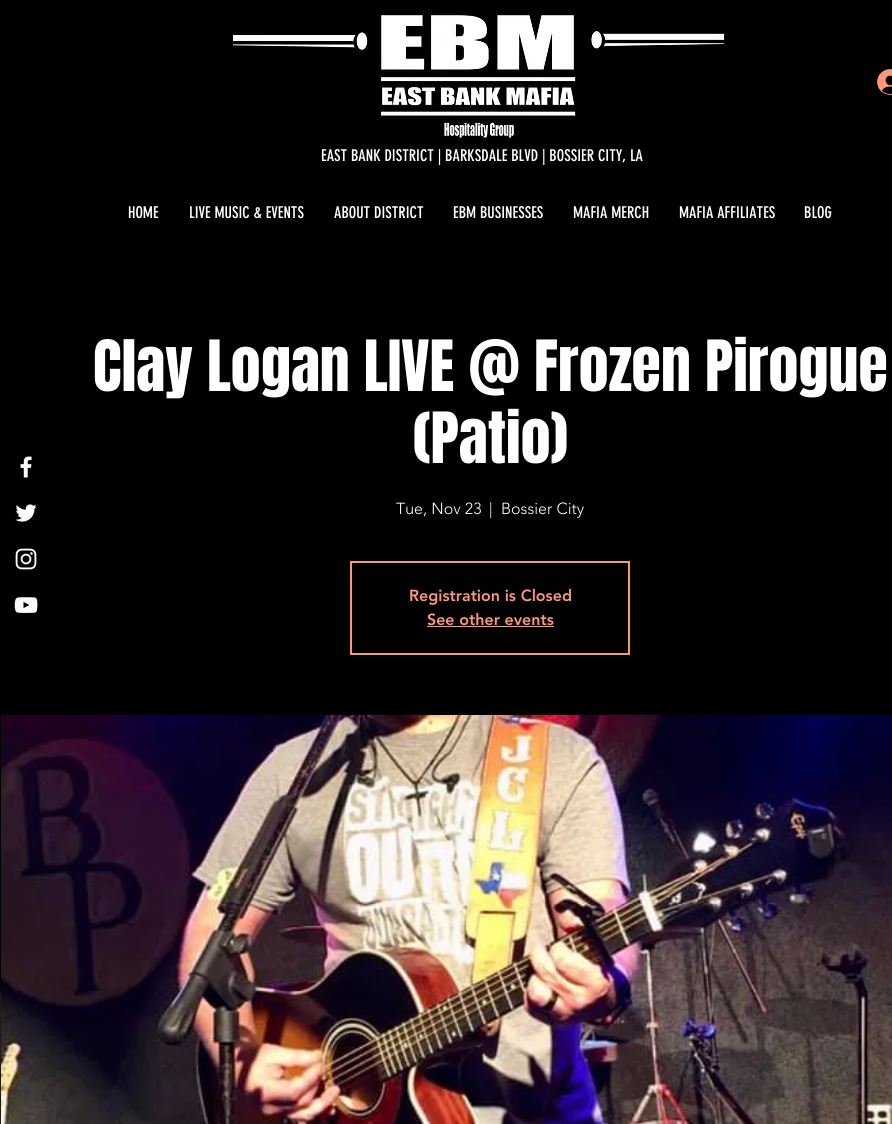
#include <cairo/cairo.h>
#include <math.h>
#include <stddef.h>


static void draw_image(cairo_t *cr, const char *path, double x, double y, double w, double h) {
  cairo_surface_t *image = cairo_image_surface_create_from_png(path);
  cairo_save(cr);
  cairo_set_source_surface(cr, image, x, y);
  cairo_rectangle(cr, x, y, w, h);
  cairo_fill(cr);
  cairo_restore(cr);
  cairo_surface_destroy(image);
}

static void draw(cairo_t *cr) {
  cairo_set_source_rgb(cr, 0, 0, 0);
  cairo_paint(cr);
  draw_image(cr, "images/1.png", 232, 12, 496, 128);
  draw_image(cr, "images/2.png", 877, 69, 15, 26);
  draw_image(cr, "images/3.png", 20, 456, 12, 22);
  draw_image(cr, "images/4.png", 15, 504, 22, 18);
  draw_image(cr, "images/5.png", 15, 548, 22, 22);
  draw_image(cr, "images/6.png", 14, 597, 24, 17);
  cairo_rectangle(cr, 351, 562, 278, 92);
  cairo_set_source_rgb(cr, 252 / 255.0, 151 / 255.0, 121 / 255.0);
  cairo_stroke(cr);
  cairo_rectangle(cr, 427, 626, 127, 1);
  cairo_fill(cr);
  draw_image(cr, "images/7.png", 1, 715, 891, 409);
  cairo_set_source_rgb(cr, 27 / 255.0, 27 / 255.0, 27 / 255.0);
  cairo_rectangle(cr, 0, 991, 1, 133);
  cairo_fill(cr);
  cairo_select_font_face(cr, "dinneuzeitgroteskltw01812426", CAIRO_FONT_SLANT_NORMAL, CAIRO_FONT_WEIGHT_NORMAL);
  cairo_set_font_size(cr, 16);
  cairo_set_source_rgb(cr, 1, 1, 1);
  cairo_move_to(cr, 321, 161);
  cairo_show_text(cr, "EAST BANK DISTRICT | BARKSDALE BLVD | BOSSIER CITY, LA");
  cairo_move_to(cr, 128, 218);
  cairo_show_text(cr, "HOME");
  cairo_move_to(cr, 189, 218);
  cairo_show_text(cr, "LIVE MUSIC & EVENTS");
  cairo_move_to(cr, 334, 218);
  cairo_show_text(cr, "ABOUT DISTRICT");
  cairo_move_to(cr, 453, 218);
  cairo_show_text(cr, "EBM BUSINESSES");
  cairo_move_to(cr, 573, 218);
  cairo_show_text(cr, "MAFIA MERCH");
  cairo_move_to(cr, 679, 218);
  cairo_show_text(cr, "MAFIA AFFILIATES");
  cairo_move_to(cr, 804, 218);
  cairo_show_text(cr, "BLOG");
  cairo_select_font_face(cr, "Anton", CAIRO_FONT_SLANT_NORMAL, CAIRO_FONT_WEIGHT_NORMAL);
  cairo_set_font_size(cr, 60);
  cairo_move_to(cr, 93, 391);
  cairo_show_text(cr, "Clay Logan LIVE @ Frozen Pirogue");
  cairo_move_to(cr, 413, 463);
  cairo_show_text(cr, "(Patio)");
  cairo_select_font_face(cr, "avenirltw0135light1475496 Light", CAIRO_FONT_SLANT_NORMAL, CAIRO_FONT_WEIGHT_NORMAL);
  cairo_set_font_size(cr, 16);
  cairo_move_to(cr, 396, 514);
  cairo_show_text(cr, "Tue, Nov 23");
  cairo_move_to(cr, 489, 514);
  cairo_show_text(cr, "|");
  cairo_move_to(cr, 501, 514);
  cairo_show_text(cr, "Bossier City");
  cairo_select_font_face(cr, "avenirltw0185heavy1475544 Black", CAIRO_FONT_SLANT_NORMAL, CAIRO_FONT_WEIGHT_NORMAL);
  cairo_set_source_rgb(cr, 252 / 255.0, 151 / 255.0, 121 / 255.0);
  cairo_move_to(cr, 409, 601);
  cairo_show_text(cr, "Registration is Closed");
  cairo_move_to(cr, 427, 625);
  cairo_show_text(cr, "See other events");
}

int main(void) {
  cairo_surface_t *surface = cairo_image_surface_create(CAIRO_FORMAT_RGB24, 892, 1124);
  cairo_t *cr = cairo_create(surface);
  cairo_font_options_t *options = cairo_font_options_create();
  cairo_font_options_set_hint_metrics(options, CAIRO_HINT_METRICS_OFF);
  cairo_font_options_set_hint_style(options, CAIRO_HINT_STYLE_NONE);
  cairo_set_font_options(cr, options);
  cairo_set_miter_limit(cr, 4);
  draw(cr);
  cairo_surface_write_to_png(surface, "out.png");
  cairo_font_options_destroy(options);
  cairo_destroy(cr);
  cairo_surface_destroy(surface);
  return 0;
}
